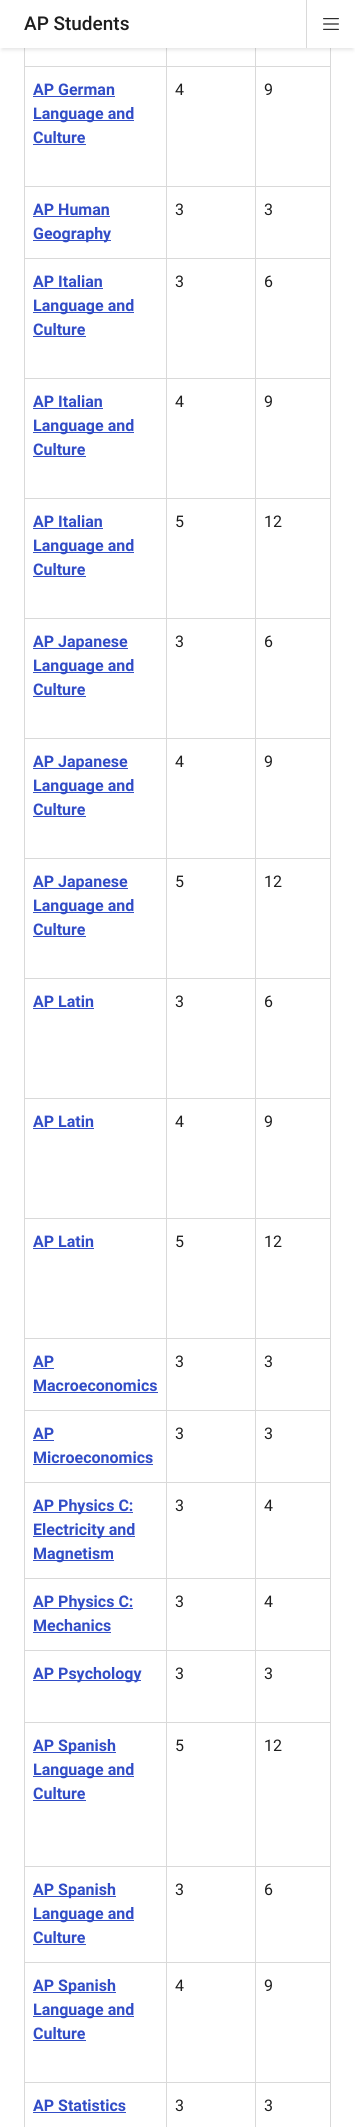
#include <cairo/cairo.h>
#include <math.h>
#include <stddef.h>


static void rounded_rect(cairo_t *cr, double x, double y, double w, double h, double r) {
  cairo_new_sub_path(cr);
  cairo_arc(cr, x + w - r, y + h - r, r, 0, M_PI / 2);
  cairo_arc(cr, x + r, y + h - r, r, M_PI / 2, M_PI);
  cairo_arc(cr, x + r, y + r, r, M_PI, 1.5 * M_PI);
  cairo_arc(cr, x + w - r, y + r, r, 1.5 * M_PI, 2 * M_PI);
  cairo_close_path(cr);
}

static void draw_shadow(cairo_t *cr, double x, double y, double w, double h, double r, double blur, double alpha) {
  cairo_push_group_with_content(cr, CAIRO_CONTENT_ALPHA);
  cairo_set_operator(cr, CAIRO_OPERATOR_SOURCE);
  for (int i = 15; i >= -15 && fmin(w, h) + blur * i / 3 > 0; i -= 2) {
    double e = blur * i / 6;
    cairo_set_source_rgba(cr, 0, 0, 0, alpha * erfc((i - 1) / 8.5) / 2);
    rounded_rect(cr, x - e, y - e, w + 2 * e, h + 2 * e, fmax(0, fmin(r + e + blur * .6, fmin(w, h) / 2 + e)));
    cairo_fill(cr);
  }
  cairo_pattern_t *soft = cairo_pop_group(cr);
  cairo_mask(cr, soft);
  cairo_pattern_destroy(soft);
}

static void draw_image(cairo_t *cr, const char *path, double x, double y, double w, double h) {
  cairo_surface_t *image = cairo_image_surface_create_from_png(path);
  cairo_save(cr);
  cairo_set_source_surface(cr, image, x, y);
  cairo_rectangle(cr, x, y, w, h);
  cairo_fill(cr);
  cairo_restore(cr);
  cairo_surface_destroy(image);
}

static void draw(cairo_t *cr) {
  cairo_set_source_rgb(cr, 1, 1, 1);
  cairo_paint(cr);
  cairo_rectangle(cr, 24.5, -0.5, 306, 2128);
  cairo_set_source_rgb(cr, 217 / 255.0, 217 / 255.0, 217 / 255.0);
  cairo_set_line_width(cr, 1);
  cairo_stroke(cr);
  cairo_rectangle(cr, 255, 66, 75, 1);
  cairo_fill(cr);
  cairo_rectangle(cr, 255, 186, 75, 1);
  cairo_fill(cr);
  cairo_rectangle(cr, 255, 258, 75, 1);
  cairo_fill(cr);
  cairo_rectangle(cr, 255, 378, 75, 1);
  cairo_fill(cr);
  cairo_rectangle(cr, 255, 498, 75, 1);
  cairo_fill(cr);
  cairo_rectangle(cr, 255, 618, 75, 1);
  cairo_fill(cr);
  cairo_rectangle(cr, 255, 738, 75, 1);
  cairo_fill(cr);
  cairo_rectangle(cr, 255, 858, 75, 1);
  cairo_fill(cr);
  cairo_rectangle(cr, 255, 978, 75, 1);
  cairo_fill(cr);
  cairo_rectangle(cr, 255, 1098, 75, 1);
  cairo_fill(cr);
  cairo_rectangle(cr, 255, 1218, 75, 1);
  cairo_fill(cr);
  cairo_rectangle(cr, 255, 1338, 75, 1);
  cairo_fill(cr);
  cairo_rectangle(cr, 255, 1410, 75, 1);
  cairo_fill(cr);
  cairo_rectangle(cr, 255, 1482, 75, 1);
  cairo_fill(cr);
  cairo_rectangle(cr, 255, 1578, 75, 1);
  cairo_fill(cr);
  cairo_rectangle(cr, 255, 1650, 75, 1);
  cairo_fill(cr);
  cairo_rectangle(cr, 255, 1722, 75, 1);
  cairo_fill(cr);
  cairo_rectangle(cr, 255, 1866, 75, 1);
  cairo_fill(cr);
  cairo_rectangle(cr, 255, 1962, 75, 1);
  cairo_fill(cr);
  cairo_rectangle(cr, 255, 2082, 75, 1);
  cairo_fill(cr);
  cairo_rectangle(cr, 255, 2082, 1, 45);
  cairo_fill(cr);
  cairo_rectangle(cr, 166, 2082, 90, 1);
  cairo_fill(cr);
  cairo_rectangle(cr, 255, 1962, 1, 121);
  cairo_fill(cr);
  cairo_rectangle(cr, 166, 1962, 90, 1);
  cairo_fill(cr);
  cairo_rectangle(cr, 255, 1866, 1, 97);
  cairo_fill(cr);
  cairo_rectangle(cr, 166, 1866, 90, 1);
  cairo_fill(cr);
  cairo_rectangle(cr, 255, 1722, 1, 145);
  cairo_fill(cr);
  cairo_rectangle(cr, 166, 1722, 90, 1);
  cairo_fill(cr);
  cairo_rectangle(cr, 255, 1650, 1, 73);
  cairo_fill(cr);
  cairo_rectangle(cr, 166, 1650, 90, 1);
  cairo_fill(cr);
  cairo_rectangle(cr, 255, 1578, 1, 73);
  cairo_fill(cr);
  cairo_rectangle(cr, 166, 1578, 90, 1);
  cairo_fill(cr);
  cairo_rectangle(cr, 255, 1482, 1, 97);
  cairo_fill(cr);
  cairo_rectangle(cr, 166, 1482, 90, 1);
  cairo_fill(cr);
  cairo_rectangle(cr, 255, 1410, 1, 73);
  cairo_fill(cr);
  cairo_rectangle(cr, 166, 1410, 90, 1);
  cairo_fill(cr);
  cairo_rectangle(cr, 255, 1338, 1, 73);
  cairo_fill(cr);
  cairo_rectangle(cr, 166, 1338, 90, 1);
  cairo_fill(cr);
  cairo_rectangle(cr, 255, 1218, 1, 121);
  cairo_fill(cr);
  cairo_rectangle(cr, 166, 1218, 90, 1);
  cairo_fill(cr);
  cairo_rectangle(cr, 255, 1098, 1, 121);
  cairo_fill(cr);
  cairo_rectangle(cr, 166, 1098, 90, 1);
  cairo_fill(cr);
  cairo_rectangle(cr, 255, 978, 1, 121);
  cairo_fill(cr);
  cairo_rectangle(cr, 166, 978, 90, 1);
  cairo_fill(cr);
  cairo_rectangle(cr, 255, 858, 1, 121);
  cairo_fill(cr);
  cairo_rectangle(cr, 166, 858, 90, 1);
  cairo_fill(cr);
  cairo_rectangle(cr, 255, 738, 1, 121);
  cairo_fill(cr);
  cairo_rectangle(cr, 166, 738, 90, 1);
  cairo_fill(cr);
  cairo_rectangle(cr, 255, 618, 1, 121);
  cairo_fill(cr);
  cairo_rectangle(cr, 166, 618, 90, 1);
  cairo_fill(cr);
  cairo_rectangle(cr, 255, 498, 1, 121);
  cairo_fill(cr);
  cairo_rectangle(cr, 166, 498, 90, 1);
  cairo_fill(cr);
  cairo_rectangle(cr, 255, 378, 1, 121);
  cairo_fill(cr);
  cairo_rectangle(cr, 166, 378, 90, 1);
  cairo_fill(cr);
  cairo_rectangle(cr, 255, 258, 1, 121);
  cairo_fill(cr);
  cairo_rectangle(cr, 166, 258, 90, 1);
  cairo_fill(cr);
  cairo_rectangle(cr, 255, 186, 1, 73);
  cairo_fill(cr);
  cairo_rectangle(cr, 166, 186, 90, 1);
  cairo_fill(cr);
  cairo_rectangle(cr, 255, 66, 1, 121);
  cairo_fill(cr);
  cairo_rectangle(cr, 166, 66, 90, 1);
  cairo_fill(cr);
  cairo_rectangle(cr, 166, 2082, 1, 45);
  cairo_fill(cr);
  cairo_rectangle(cr, 25, 2082, 142, 1);
  cairo_fill(cr);
  cairo_rectangle(cr, 166, 1962, 1, 121);
  cairo_fill(cr);
  cairo_rectangle(cr, 25, 1962, 142, 1);
  cairo_fill(cr);
  cairo_rectangle(cr, 166, 1866, 1, 97);
  cairo_fill(cr);
  cairo_rectangle(cr, 25, 1866, 142, 1);
  cairo_fill(cr);
  cairo_rectangle(cr, 166, 1722, 1, 145);
  cairo_fill(cr);
  cairo_rectangle(cr, 25, 1722, 142, 1);
  cairo_fill(cr);
  cairo_rectangle(cr, 166, 1650, 1, 73);
  cairo_fill(cr);
  cairo_rectangle(cr, 25, 1650, 142, 1);
  cairo_fill(cr);
  cairo_rectangle(cr, 166, 1578, 1, 73);
  cairo_fill(cr);
  cairo_rectangle(cr, 25, 1578, 142, 1);
  cairo_fill(cr);
  cairo_rectangle(cr, 166, 1482, 1, 97);
  cairo_fill(cr);
  cairo_rectangle(cr, 25, 1482, 142, 1);
  cairo_fill(cr);
  cairo_rectangle(cr, 166, 1410, 1, 73);
  cairo_fill(cr);
  cairo_rectangle(cr, 25, 1410, 142, 1);
  cairo_fill(cr);
  cairo_rectangle(cr, 166, 1338, 1, 73);
  cairo_fill(cr);
  cairo_rectangle(cr, 25, 1338, 142, 1);
  cairo_fill(cr);
  cairo_rectangle(cr, 166, 1218, 1, 121);
  cairo_fill(cr);
  cairo_rectangle(cr, 25, 1218, 142, 1);
  cairo_fill(cr);
  cairo_rectangle(cr, 166, 1098, 1, 121);
  cairo_fill(cr);
  cairo_rectangle(cr, 25, 1098, 142, 1);
  cairo_fill(cr);
  cairo_rectangle(cr, 166, 978, 1, 121);
  cairo_fill(cr);
  cairo_rectangle(cr, 25, 978, 142, 1);
  cairo_fill(cr);
  cairo_rectangle(cr, 166, 858, 1, 121);
  cairo_fill(cr);
  cairo_rectangle(cr, 25, 858, 142, 1);
  cairo_fill(cr);
  cairo_rectangle(cr, 166, 738, 1, 121);
  cairo_fill(cr);
  cairo_rectangle(cr, 25, 738, 142, 1);
  cairo_fill(cr);
  cairo_rectangle(cr, 166, 618, 1, 121);
  cairo_fill(cr);
  cairo_rectangle(cr, 25, 618, 142, 1);
  cairo_fill(cr);
  cairo_rectangle(cr, 166, 498, 1, 121);
  cairo_fill(cr);
  cairo_rectangle(cr, 25, 498, 142, 1);
  cairo_fill(cr);
  cairo_rectangle(cr, 166, 378, 1, 121);
  cairo_fill(cr);
  cairo_rectangle(cr, 25, 378, 142, 1);
  cairo_fill(cr);
  cairo_rectangle(cr, 166, 258, 1, 121);
  cairo_fill(cr);
  cairo_rectangle(cr, 25, 258, 142, 1);
  cairo_fill(cr);
  cairo_rectangle(cr, 166, 186, 1, 73);
  cairo_fill(cr);
  cairo_rectangle(cr, 25, 186, 142, 1);
  cairo_fill(cr);
  cairo_rectangle(cr, 166, 66, 1, 121);
  cairo_fill(cr);
  cairo_rectangle(cr, 25, 66, 142, 1);
  cairo_fill(cr);
  cairo_rectangle(cr, 166, 48, 1, 19);
  cairo_fill(cr);
  cairo_rectangle(cr, 255, 48, 1, 19);
  cairo_fill(cr);
  cairo_set_source_rgb(cr, 0, 0, 0);
  draw_shadow(cr, 2, 6, 351, 44, 0, 2, 0.1);
  cairo_set_source_rgb(cr, 1, 1, 1);
  cairo_rectangle(cr, 0, 0, 355, 48);
  cairo_fill(cr);
  cairo_set_source_rgb(cr, 217 / 255.0, 217 / 255.0, 217 / 255.0);
  cairo_rectangle(cr, 306, 0, 1, 48);
  cairo_fill(cr);
  draw_image(cr, "images/1.png", 323, 18, 16, 12);
  cairo_set_source_rgb(cr, 50 / 255.0, 77 / 255.0, 199 / 255.0);
  cairo_rectangle(cr, 33, 96, 82, 1);
  cairo_fill(cr);
  cairo_rectangle(cr, 33, 120, 101, 1);
  cairo_fill(cr);
  cairo_rectangle(cr, 33, 144, 53, 1);
  cairo_fill(cr);
  cairo_rectangle(cr, 33, 216, 77, 1);
  cairo_fill(cr);
  cairo_rectangle(cr, 33, 240, 78, 1);
  cairo_fill(cr);
  cairo_rectangle(cr, 33, 288, 70, 1);
  cairo_fill(cr);
  cairo_rectangle(cr, 33, 312, 101, 1);
  cairo_fill(cr);
  cairo_rectangle(cr, 33, 336, 53, 1);
  cairo_fill(cr);
  cairo_rectangle(cr, 33, 408, 70, 1);
  cairo_fill(cr);
  cairo_rectangle(cr, 33, 432, 101, 1);
  cairo_fill(cr);
  cairo_rectangle(cr, 33, 456, 53, 1);
  cairo_fill(cr);
  cairo_rectangle(cr, 33, 528, 70, 1);
  cairo_fill(cr);
  cairo_rectangle(cr, 33, 552, 101, 1);
  cairo_fill(cr);
  cairo_rectangle(cr, 33, 576, 53, 1);
  cairo_fill(cr);
  cairo_rectangle(cr, 33, 648, 95, 1);
  cairo_fill(cr);
  cairo_rectangle(cr, 33, 672, 101, 1);
  cairo_fill(cr);
  cairo_rectangle(cr, 33, 696, 53, 1);
  cairo_fill(cr);
  cairo_rectangle(cr, 33, 768, 95, 1);
  cairo_fill(cr);
  cairo_rectangle(cr, 33, 792, 101, 1);
  cairo_fill(cr);
  cairo_rectangle(cr, 33, 816, 53, 1);
  cairo_fill(cr);
  cairo_rectangle(cr, 33, 888, 95, 1);
  cairo_fill(cr);
  cairo_rectangle(cr, 33, 912, 101, 1);
  cairo_fill(cr);
  cairo_rectangle(cr, 33, 936, 53, 1);
  cairo_fill(cr);
  cairo_rectangle(cr, 33, 1008, 61, 1);
  cairo_fill(cr);
  cairo_rectangle(cr, 33, 1128, 61, 1);
  cairo_fill(cr);
  cairo_rectangle(cr, 33, 1248, 61, 1);
  cairo_fill(cr);
  cairo_rectangle(cr, 33, 1368, 21, 1);
  cairo_fill(cr);
  cairo_rectangle(cr, 33, 1392, 125, 1);
  cairo_fill(cr);
  cairo_rectangle(cr, 33, 1440, 21, 1);
  cairo_fill(cr);
  cairo_rectangle(cr, 33, 1464, 120, 1);
  cairo_fill(cr);
  cairo_rectangle(cr, 33, 1512, 100, 1);
  cairo_fill(cr);
  cairo_rectangle(cr, 33, 1536, 102, 1);
  cairo_fill(cr);
  cairo_rectangle(cr, 33, 1560, 81, 1);
  cairo_fill(cr);
  cairo_rectangle(cr, 33, 1608, 100, 1);
  cairo_fill(cr);
  cairo_rectangle(cr, 33, 1632, 78, 1);
  cairo_fill(cr);
  cairo_rectangle(cr, 33, 1680, 108, 1);
  cairo_fill(cr);
  cairo_rectangle(cr, 33, 1752, 83, 1);
  cairo_fill(cr);
  cairo_rectangle(cr, 33, 1776, 101, 1);
  cairo_fill(cr);
  cairo_rectangle(cr, 33, 1800, 53, 1);
  cairo_fill(cr);
  cairo_rectangle(cr, 33, 1896, 83, 1);
  cairo_fill(cr);
  cairo_rectangle(cr, 33, 1920, 101, 1);
  cairo_fill(cr);
  cairo_rectangle(cr, 33, 1944, 53, 1);
  cairo_fill(cr);
  cairo_rectangle(cr, 33, 1992, 83, 1);
  cairo_fill(cr);
  cairo_rectangle(cr, 33, 2016, 101, 1);
  cairo_fill(cr);
  cairo_rectangle(cr, 33, 2040, 53, 1);
  cairo_fill(cr);
  cairo_rectangle(cr, 33, 2112, 93, 1);
  cairo_fill(cr);
  cairo_select_font_face(cr, "Roboto Medium", CAIRO_FONT_SLANT_NORMAL, CAIRO_FONT_WEIGHT_NORMAL);
  cairo_set_font_size(cr, 19);
  cairo_set_source_rgb(cr, 30 / 255.0, 30 / 255.0, 30 / 255.0);
  cairo_move_to(cr, 24, 30);
  cairo_show_text(cr, "AP Students");
  cairo_select_font_face(cr, "Roboto", CAIRO_FONT_SLANT_NORMAL, CAIRO_FONT_WEIGHT_BOLD);
  cairo_set_font_size(cr, 16);
  cairo_set_source_rgb(cr, 50 / 255.0, 77 / 255.0, 199 / 255.0);
  cairo_move_to(cr, 33, 95);
  cairo_show_text(cr, "AP German");
  cairo_move_to(cr, 33, 119);
  cairo_show_text(cr, "Language and");
  cairo_move_to(cr, 33, 143);
  cairo_show_text(cr, "Culture");
  cairo_select_font_face(cr, "Roboto", CAIRO_FONT_SLANT_NORMAL, CAIRO_FONT_WEIGHT_NORMAL);
  cairo_set_source_rgb(cr, 30 / 255.0, 30 / 255.0, 30 / 255.0);
  cairo_move_to(cr, 175, 95);
  cairo_show_text(cr, "4");
  cairo_move_to(cr, 264, 95);
  cairo_show_text(cr, "9");
  cairo_select_font_face(cr, "Roboto", CAIRO_FONT_SLANT_NORMAL, CAIRO_FONT_WEIGHT_BOLD);
  cairo_set_source_rgb(cr, 50 / 255.0, 77 / 255.0, 199 / 255.0);
  cairo_move_to(cr, 33, 215);
  cairo_show_text(cr, "AP Human");
  cairo_move_to(cr, 33, 239);
  cairo_show_text(cr, "Geography");
  cairo_select_font_face(cr, "Roboto", CAIRO_FONT_SLANT_NORMAL, CAIRO_FONT_WEIGHT_NORMAL);
  cairo_set_source_rgb(cr, 30 / 255.0, 30 / 255.0, 30 / 255.0);
  cairo_move_to(cr, 175, 215);
  cairo_show_text(cr, "3");
  cairo_move_to(cr, 264, 215);
  cairo_show_text(cr, "3");
  cairo_select_font_face(cr, "Roboto", CAIRO_FONT_SLANT_NORMAL, CAIRO_FONT_WEIGHT_BOLD);
  cairo_set_source_rgb(cr, 50 / 255.0, 77 / 255.0, 199 / 255.0);
  cairo_move_to(cr, 33, 287);
  cairo_show_text(cr, "AP Italian");
  cairo_move_to(cr, 33, 311);
  cairo_show_text(cr, "Language and");
  cairo_move_to(cr, 33, 335);
  cairo_show_text(cr, "Culture");
  cairo_select_font_face(cr, "Roboto", CAIRO_FONT_SLANT_NORMAL, CAIRO_FONT_WEIGHT_NORMAL);
  cairo_set_source_rgb(cr, 30 / 255.0, 30 / 255.0, 30 / 255.0);
  cairo_move_to(cr, 175, 287);
  cairo_show_text(cr, "3");
  cairo_move_to(cr, 264, 287);
  cairo_show_text(cr, "6");
  cairo_select_font_face(cr, "Roboto", CAIRO_FONT_SLANT_NORMAL, CAIRO_FONT_WEIGHT_BOLD);
  cairo_set_source_rgb(cr, 50 / 255.0, 77 / 255.0, 199 / 255.0);
  cairo_move_to(cr, 33, 407);
  cairo_show_text(cr, "AP Italian");
  cairo_move_to(cr, 33, 431);
  cairo_show_text(cr, "Language and");
  cairo_move_to(cr, 33, 455);
  cairo_show_text(cr, "Culture");
  cairo_select_font_face(cr, "Roboto", CAIRO_FONT_SLANT_NORMAL, CAIRO_FONT_WEIGHT_NORMAL);
  cairo_set_source_rgb(cr, 30 / 255.0, 30 / 255.0, 30 / 255.0);
  cairo_move_to(cr, 175, 407);
  cairo_show_text(cr, "4");
  cairo_move_to(cr, 264, 407);
  cairo_show_text(cr, "9");
  cairo_select_font_face(cr, "Roboto", CAIRO_FONT_SLANT_NORMAL, CAIRO_FONT_WEIGHT_BOLD);
  cairo_set_source_rgb(cr, 50 / 255.0, 77 / 255.0, 199 / 255.0);
  cairo_move_to(cr, 33, 527);
  cairo_show_text(cr, "AP Italian");
  cairo_move_to(cr, 33, 551);
  cairo_show_text(cr, "Language and");
  cairo_move_to(cr, 33, 575);
  cairo_show_text(cr, "Culture");
  cairo_select_font_face(cr, "Roboto", CAIRO_FONT_SLANT_NORMAL, CAIRO_FONT_WEIGHT_NORMAL);
  cairo_set_source_rgb(cr, 30 / 255.0, 30 / 255.0, 30 / 255.0);
  cairo_move_to(cr, 175, 527);
  cairo_show_text(cr, "5");
  cairo_move_to(cr, 264, 527);
  cairo_show_text(cr, "12");
  cairo_select_font_face(cr, "Roboto", CAIRO_FONT_SLANT_NORMAL, CAIRO_FONT_WEIGHT_BOLD);
  cairo_set_source_rgb(cr, 50 / 255.0, 77 / 255.0, 199 / 255.0);
  cairo_move_to(cr, 33, 647);
  cairo_show_text(cr, "AP Japanese");
  cairo_move_to(cr, 33, 671);
  cairo_show_text(cr, "Language and");
  cairo_move_to(cr, 33, 695);
  cairo_show_text(cr, "Culture");
  cairo_select_font_face(cr, "Roboto", CAIRO_FONT_SLANT_NORMAL, CAIRO_FONT_WEIGHT_NORMAL);
  cairo_set_source_rgb(cr, 30 / 255.0, 30 / 255.0, 30 / 255.0);
  cairo_move_to(cr, 175, 647);
  cairo_show_text(cr, "3");
  cairo_move_to(cr, 264, 647);
  cairo_show_text(cr, "6");
  cairo_select_font_face(cr, "Roboto", CAIRO_FONT_SLANT_NORMAL, CAIRO_FONT_WEIGHT_BOLD);
  cairo_set_source_rgb(cr, 50 / 255.0, 77 / 255.0, 199 / 255.0);
  cairo_move_to(cr, 33, 767);
  cairo_show_text(cr, "AP Japanese");
  cairo_move_to(cr, 33, 791);
  cairo_show_text(cr, "Language and");
  cairo_move_to(cr, 33, 815);
  cairo_show_text(cr, "Culture");
  cairo_select_font_face(cr, "Roboto", CAIRO_FONT_SLANT_NORMAL, CAIRO_FONT_WEIGHT_NORMAL);
  cairo_set_source_rgb(cr, 30 / 255.0, 30 / 255.0, 30 / 255.0);
  cairo_move_to(cr, 175, 767);
  cairo_show_text(cr, "4");
  cairo_move_to(cr, 264, 767);
  cairo_show_text(cr, "9");
  cairo_select_font_face(cr, "Roboto", CAIRO_FONT_SLANT_NORMAL, CAIRO_FONT_WEIGHT_BOLD);
  cairo_set_source_rgb(cr, 50 / 255.0, 77 / 255.0, 199 / 255.0);
  cairo_move_to(cr, 33, 887);
  cairo_show_text(cr, "AP Japanese");
  cairo_move_to(cr, 33, 911);
  cairo_show_text(cr, "Language and");
  cairo_move_to(cr, 33, 935);
  cairo_show_text(cr, "Culture");
  cairo_select_font_face(cr, "Roboto", CAIRO_FONT_SLANT_NORMAL, CAIRO_FONT_WEIGHT_NORMAL);
  cairo_set_source_rgb(cr, 30 / 255.0, 30 / 255.0, 30 / 255.0);
  cairo_move_to(cr, 175, 887);
  cairo_show_text(cr, "5");
  cairo_move_to(cr, 264, 887);
  cairo_show_text(cr, "12");
  cairo_select_font_face(cr, "Roboto", CAIRO_FONT_SLANT_NORMAL, CAIRO_FONT_WEIGHT_BOLD);
  cairo_set_source_rgb(cr, 50 / 255.0, 77 / 255.0, 199 / 255.0);
  cairo_move_to(cr, 33, 1007);
  cairo_show_text(cr, "AP Latin");
  cairo_select_font_face(cr, "Roboto", CAIRO_FONT_SLANT_NORMAL, CAIRO_FONT_WEIGHT_NORMAL);
  cairo_set_source_rgb(cr, 30 / 255.0, 30 / 255.0, 30 / 255.0);
  cairo_move_to(cr, 175, 1007);
  cairo_show_text(cr, "3");
  cairo_move_to(cr, 264, 1007);
  cairo_show_text(cr, "6");
  cairo_select_font_face(cr, "Roboto", CAIRO_FONT_SLANT_NORMAL, CAIRO_FONT_WEIGHT_BOLD);
  cairo_set_source_rgb(cr, 50 / 255.0, 77 / 255.0, 199 / 255.0);
  cairo_move_to(cr, 33, 1127);
  cairo_show_text(cr, "AP Latin");
  cairo_select_font_face(cr, "Roboto", CAIRO_FONT_SLANT_NORMAL, CAIRO_FONT_WEIGHT_NORMAL);
  cairo_set_source_rgb(cr, 30 / 255.0, 30 / 255.0, 30 / 255.0);
  cairo_move_to(cr, 175, 1127);
  cairo_show_text(cr, "4");
  cairo_move_to(cr, 264, 1127);
  cairo_show_text(cr, "9");
  cairo_select_font_face(cr, "Roboto", CAIRO_FONT_SLANT_NORMAL, CAIRO_FONT_WEIGHT_BOLD);
  cairo_set_source_rgb(cr, 50 / 255.0, 77 / 255.0, 199 / 255.0);
  cairo_move_to(cr, 33, 1247);
  cairo_show_text(cr, "AP Latin");
  cairo_select_font_face(cr, "Roboto", CAIRO_FONT_SLANT_NORMAL, CAIRO_FONT_WEIGHT_NORMAL);
  cairo_set_source_rgb(cr, 30 / 255.0, 30 / 255.0, 30 / 255.0);
  cairo_move_to(cr, 175, 1247);
  cairo_show_text(cr, "5");
  cairo_move_to(cr, 264, 1247);
  cairo_show_text(cr, "12");
  cairo_select_font_face(cr, "Roboto", CAIRO_FONT_SLANT_NORMAL, CAIRO_FONT_WEIGHT_BOLD);
  cairo_set_source_rgb(cr, 50 / 255.0, 77 / 255.0, 199 / 255.0);
  cairo_move_to(cr, 33, 1367);
  cairo_show_text(cr, "AP");
  cairo_move_to(cr, 33, 1391);
  cairo_show_text(cr, "Macroeconomics");
  cairo_select_font_face(cr, "Roboto", CAIRO_FONT_SLANT_NORMAL, CAIRO_FONT_WEIGHT_NORMAL);
  cairo_set_source_rgb(cr, 30 / 255.0, 30 / 255.0, 30 / 255.0);
  cairo_move_to(cr, 175, 1367);
  cairo_show_text(cr, "3");
  cairo_move_to(cr, 264, 1367);
  cairo_show_text(cr, "3");
  cairo_select_font_face(cr, "Roboto", CAIRO_FONT_SLANT_NORMAL, CAIRO_FONT_WEIGHT_BOLD);
  cairo_set_source_rgb(cr, 50 / 255.0, 77 / 255.0, 199 / 255.0);
  cairo_move_to(cr, 33, 1439);
  cairo_show_text(cr, "AP");
  cairo_move_to(cr, 33, 1463);
  cairo_show_text(cr, "Microeconomics");
  cairo_select_font_face(cr, "Roboto", CAIRO_FONT_SLANT_NORMAL, CAIRO_FONT_WEIGHT_NORMAL);
  cairo_set_source_rgb(cr, 30 / 255.0, 30 / 255.0, 30 / 255.0);
  cairo_move_to(cr, 175, 1439);
  cairo_show_text(cr, "3");
  cairo_move_to(cr, 264, 1439);
  cairo_show_text(cr, "3");
  cairo_select_font_face(cr, "Roboto", CAIRO_FONT_SLANT_NORMAL, CAIRO_FONT_WEIGHT_BOLD);
  cairo_set_source_rgb(cr, 50 / 255.0, 77 / 255.0, 199 / 255.0);
  cairo_move_to(cr, 33, 1511);
  cairo_show_text(cr, "AP Physics C:");
  cairo_move_to(cr, 33, 1535);
  cairo_show_text(cr, "Electricity and");
  cairo_move_to(cr, 33, 1559);
  cairo_show_text(cr, "Magnetism");
  cairo_select_font_face(cr, "Roboto", CAIRO_FONT_SLANT_NORMAL, CAIRO_FONT_WEIGHT_NORMAL);
  cairo_set_source_rgb(cr, 30 / 255.0, 30 / 255.0, 30 / 255.0);
  cairo_move_to(cr, 175, 1511);
  cairo_show_text(cr, "3");
  cairo_move_to(cr, 264, 1511);
  cairo_show_text(cr, "4");
  cairo_select_font_face(cr, "Roboto", CAIRO_FONT_SLANT_NORMAL, CAIRO_FONT_WEIGHT_BOLD);
  cairo_set_source_rgb(cr, 50 / 255.0, 77 / 255.0, 199 / 255.0);
  cairo_move_to(cr, 33, 1607);
  cairo_show_text(cr, "AP Physics C:");
  cairo_move_to(cr, 33, 1631);
  cairo_show_text(cr, "Mechanics");
  cairo_select_font_face(cr, "Roboto", CAIRO_FONT_SLANT_NORMAL, CAIRO_FONT_WEIGHT_NORMAL);
  cairo_set_source_rgb(cr, 30 / 255.0, 30 / 255.0, 30 / 255.0);
  cairo_move_to(cr, 175, 1607);
  cairo_show_text(cr, "3");
  cairo_move_to(cr, 264, 1607);
  cairo_show_text(cr, "4");
  cairo_select_font_face(cr, "Roboto", CAIRO_FONT_SLANT_NORMAL, CAIRO_FONT_WEIGHT_BOLD);
  cairo_set_source_rgb(cr, 50 / 255.0, 77 / 255.0, 199 / 255.0);
  cairo_move_to(cr, 33, 1679);
  cairo_show_text(cr, "AP Psychology");
  cairo_select_font_face(cr, "Roboto", CAIRO_FONT_SLANT_NORMAL, CAIRO_FONT_WEIGHT_NORMAL);
  cairo_set_source_rgb(cr, 30 / 255.0, 30 / 255.0, 30 / 255.0);
  cairo_move_to(cr, 175, 1679);
  cairo_show_text(cr, "3");
  cairo_move_to(cr, 264, 1679);
  cairo_show_text(cr, "3");
  cairo_select_font_face(cr, "Roboto", CAIRO_FONT_SLANT_NORMAL, CAIRO_FONT_WEIGHT_BOLD);
  cairo_set_source_rgb(cr, 50 / 255.0, 77 / 255.0, 199 / 255.0);
  cairo_move_to(cr, 33, 1751);
  cairo_show_text(cr, "AP Spanish");
  cairo_move_to(cr, 33, 1775);
  cairo_show_text(cr, "Language and");
  cairo_move_to(cr, 33, 1799);
  cairo_show_text(cr, "Culture");
  cairo_select_font_face(cr, "Roboto", CAIRO_FONT_SLANT_NORMAL, CAIRO_FONT_WEIGHT_NORMAL);
  cairo_set_source_rgb(cr, 30 / 255.0, 30 / 255.0, 30 / 255.0);
  cairo_move_to(cr, 175, 1751);
  cairo_show_text(cr, "5");
  cairo_move_to(cr, 264, 1751);
  cairo_show_text(cr, "12");
  cairo_select_font_face(cr, "Roboto", CAIRO_FONT_SLANT_NORMAL, CAIRO_FONT_WEIGHT_BOLD);
  cairo_set_source_rgb(cr, 50 / 255.0, 77 / 255.0, 199 / 255.0);
  cairo_move_to(cr, 33, 1895);
  cairo_show_text(cr, "AP Spanish");
  cairo_move_to(cr, 33, 1919);
  cairo_show_text(cr, "Language and");
  cairo_move_to(cr, 33, 1943);
  cairo_show_text(cr, "Culture");
  cairo_select_font_face(cr, "Roboto", CAIRO_FONT_SLANT_NORMAL, CAIRO_FONT_WEIGHT_NORMAL);
  cairo_set_source_rgb(cr, 30 / 255.0, 30 / 255.0, 30 / 255.0);
  cairo_move_to(cr, 175, 1895);
  cairo_show_text(cr, "3");
  cairo_move_to(cr, 264, 1895);
  cairo_show_text(cr, "6");
  cairo_select_font_face(cr, "Roboto", CAIRO_FONT_SLANT_NORMAL, CAIRO_FONT_WEIGHT_BOLD);
  cairo_set_source_rgb(cr, 50 / 255.0, 77 / 255.0, 199 / 255.0);
  cairo_move_to(cr, 33, 1991);
  cairo_show_text(cr, "AP Spanish");
  cairo_move_to(cr, 33, 2015);
  cairo_show_text(cr, "Language and");
  cairo_move_to(cr, 33, 2039);
  cairo_show_text(cr, "Culture");
  cairo_select_font_face(cr, "Roboto", CAIRO_FONT_SLANT_NORMAL, CAIRO_FONT_WEIGHT_NORMAL);
  cairo_set_source_rgb(cr, 30 / 255.0, 30 / 255.0, 30 / 255.0);
  cairo_move_to(cr, 175, 1991);
  cairo_show_text(cr, "4");
  cairo_move_to(cr, 264, 1991);
  cairo_show_text(cr, "9");
  cairo_select_font_face(cr, "Roboto", CAIRO_FONT_SLANT_NORMAL, CAIRO_FONT_WEIGHT_BOLD);
  cairo_set_source_rgb(cr, 50 / 255.0, 77 / 255.0, 199 / 255.0);
  cairo_move_to(cr, 33, 2111);
  cairo_show_text(cr, "AP Statistics");
  cairo_select_font_face(cr, "Roboto", CAIRO_FONT_SLANT_NORMAL, CAIRO_FONT_WEIGHT_NORMAL);
  cairo_set_source_rgb(cr, 30 / 255.0, 30 / 255.0, 30 / 255.0);
  cairo_move_to(cr, 175, 2111);
  cairo_show_text(cr, "3");
  cairo_move_to(cr, 264, 2111);
  cairo_show_text(cr, "3");
}

int main(void) {
  cairo_surface_t *surface = cairo_image_surface_create(CAIRO_FORMAT_RGB24, 355, 2127);
  cairo_t *cr = cairo_create(surface);
  cairo_font_options_t *options = cairo_font_options_create();
  cairo_font_options_set_hint_metrics(options, CAIRO_HINT_METRICS_OFF);
  cairo_font_options_set_hint_style(options, CAIRO_HINT_STYLE_NONE);
  cairo_set_font_options(cr, options);
  cairo_set_miter_limit(cr, 4);
  draw(cr);
  cairo_surface_write_to_png(surface, "out.png");
  cairo_font_options_destroy(options);
  cairo_destroy(cr);
  cairo_surface_destroy(surface);
  return 0;
}
